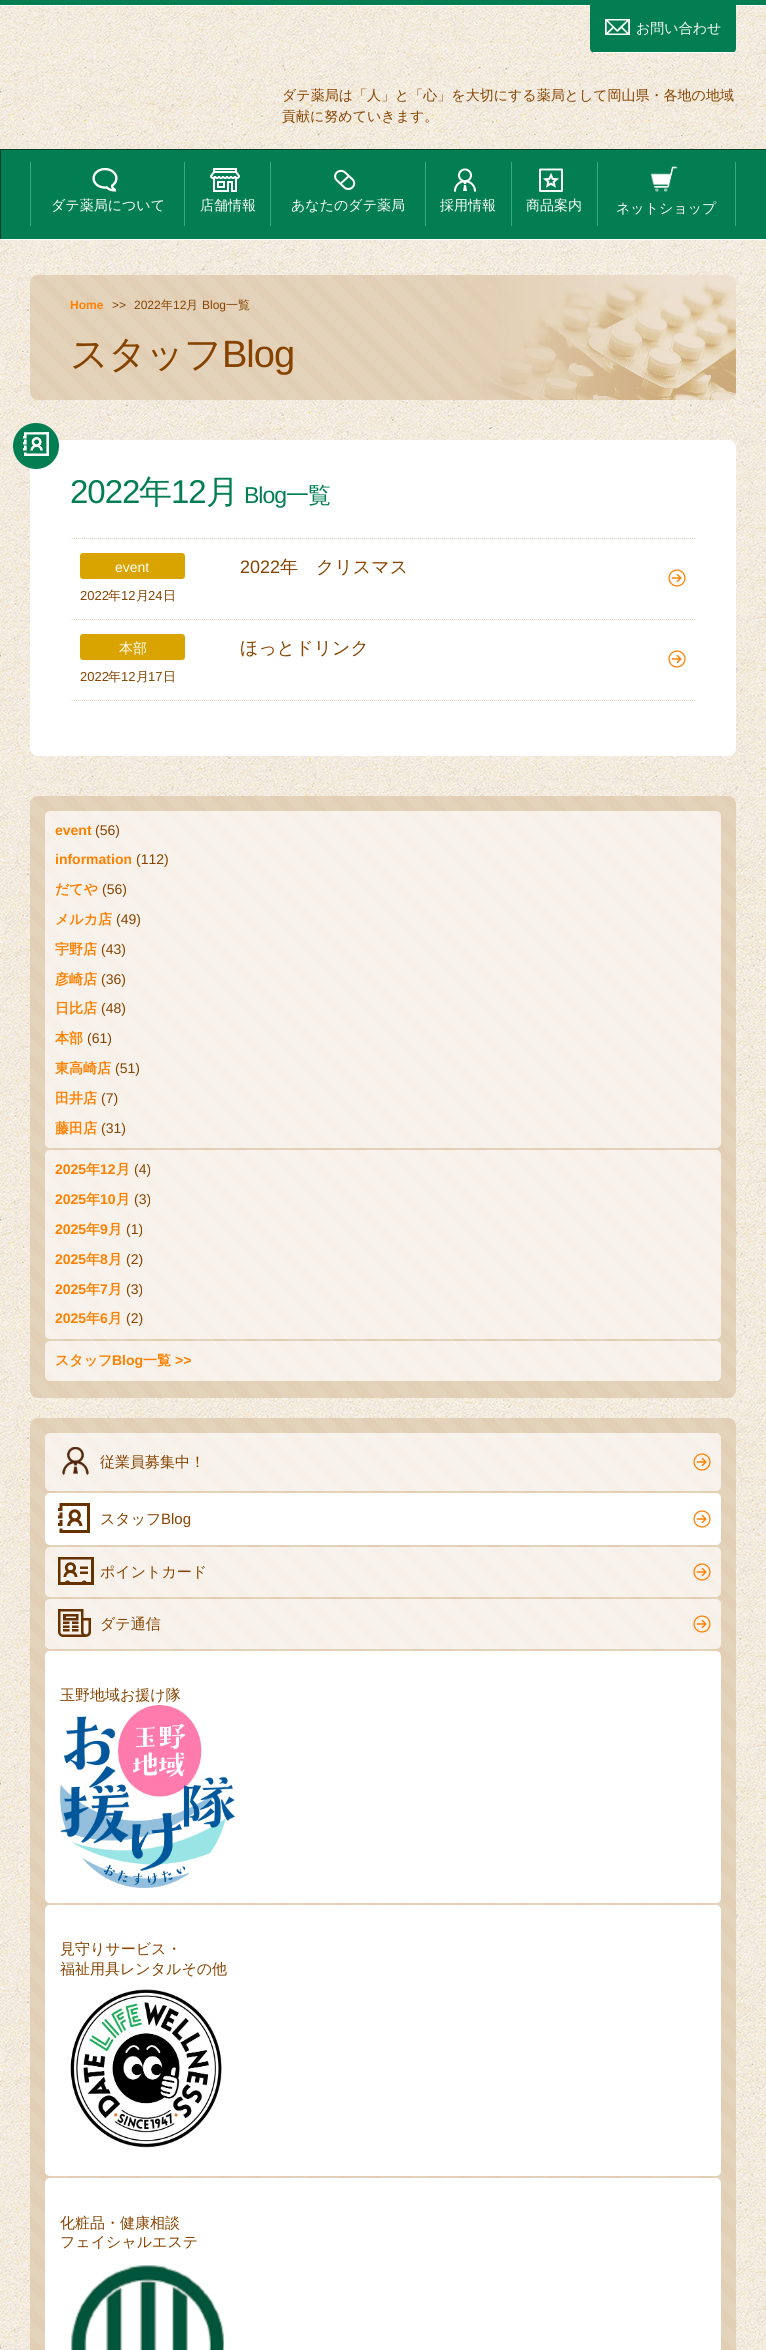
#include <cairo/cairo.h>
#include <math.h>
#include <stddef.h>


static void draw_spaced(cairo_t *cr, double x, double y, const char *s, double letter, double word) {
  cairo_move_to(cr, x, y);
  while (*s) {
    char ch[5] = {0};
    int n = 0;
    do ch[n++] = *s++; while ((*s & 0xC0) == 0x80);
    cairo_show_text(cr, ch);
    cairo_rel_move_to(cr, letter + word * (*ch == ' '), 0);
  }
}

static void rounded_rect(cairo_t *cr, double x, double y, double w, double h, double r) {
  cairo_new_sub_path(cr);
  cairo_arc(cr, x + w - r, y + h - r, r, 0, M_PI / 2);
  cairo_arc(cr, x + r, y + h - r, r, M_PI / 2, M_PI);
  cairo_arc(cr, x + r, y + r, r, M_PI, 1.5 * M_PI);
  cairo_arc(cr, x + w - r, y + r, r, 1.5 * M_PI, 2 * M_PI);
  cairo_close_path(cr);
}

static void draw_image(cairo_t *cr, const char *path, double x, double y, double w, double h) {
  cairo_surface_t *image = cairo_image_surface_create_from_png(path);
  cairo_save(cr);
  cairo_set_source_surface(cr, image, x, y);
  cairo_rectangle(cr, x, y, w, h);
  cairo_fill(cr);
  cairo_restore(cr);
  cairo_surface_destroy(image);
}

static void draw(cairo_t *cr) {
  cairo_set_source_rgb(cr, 1, 1, 1);
  cairo_paint(cr);
  draw_image(cr, "images/1.png", 0, 6, 766, 2344);
  cairo_set_source_rgb(cr, 2 / 255.0, 126 / 255.0, 82 / 255.0);
  cairo_rectangle(cr, 0, 0, 766, 5);
  cairo_fill(cr);
  cairo_new_path(cr);
  cairo_move_to(cr, 590, 4);
  cairo_line_to(cr, 736, 4);
  cairo_line_to(cr, 736, 48);
  cairo_curve_to(cr, 736, 51, 734, 53, 731, 53);
  cairo_line_to(cr, 595, 53);
  cairo_curve_to(cr, 592, 53, 590, 51, 590, 48);
  cairo_close_path(cr);
  cairo_fill(cr);
  cairo_set_source_rgb(cr, 1, 1, 1);
  cairo_rectangle(cr, 593, 52, 141, 1);
  cairo_fill(cr);
  draw_image(cr, "images/2.png", 605, 19, 25, 16);
  cairo_set_source_rgb(cr, 2 / 255.0, 126 / 255.0, 82 / 255.0);
  cairo_rectangle(cr, 1, 150, 765, 89);
  cairo_fill(cr);
  cairo_save(cr);
  cairo_rectangle(cr, 0, 149, 766, 90);
  cairo_clip(cr);
  cairo_set_source_rgb(cr, 1 / 255.0, 63 / 255.0, 41 / 255.0);
  cairo_set_fill_rule(cr, CAIRO_FILL_RULE_EVEN_ODD);
  cairo_new_path(cr);
  cairo_move_to(cr, -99, 50);
  cairo_line_to(cr, 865, 50);
  cairo_line_to(cr, 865, 338);
  cairo_line_to(cr, -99, 338);
  cairo_close_path(cr);
  cairo_move_to(cr, 1, 150);
  cairo_line_to(cr, 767, 150);
  cairo_line_to(cr, 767, 240);
  cairo_line_to(cr, 1, 240);
  cairo_close_path(cr);
  cairo_fill(cr);
  cairo_restore(cr);
  cairo_set_source_rgb(cr, 1, 1, 1);
  cairo_rectangle(cr, 0, 239, 766, 1);
  cairo_fill(cr);
  cairo_set_source_rgb(cr, 55 / 255.0, 171 / 255.0, 133 / 255.0);
  cairo_rectangle(cr, 735, 162, 1, 64);
  cairo_fill(cr);
  cairo_rectangle(cr, 30, 162, 1, 64);
  cairo_fill(cr);
  draw_image(cr, "images/3.png", 92, 168, 26, 24);
  cairo_rectangle(cr, 184, 162, 1, 64);
  cairo_fill(cr);
  draw_image(cr, "images/4.png", 210, 168, 30, 24);
  cairo_rectangle(cr, 270, 162, 1, 64);
  cairo_fill(cr);
  draw_image(cr, "images/5.png", 334, 169, 22, 21);
  cairo_rectangle(cr, 425, 162, 1, 64);
  cairo_fill(cr);
  draw_image(cr, "images/6.png", 454, 168, 22, 24);
  cairo_rectangle(cr, 511, 162, 1, 64);
  cairo_fill(cr);
  draw_image(cr, "images/7.png", 539, 168, 24, 24);
  cairo_rectangle(cr, 597, 162, 1, 64);
  cairo_fill(cr);
  draw_image(cr, "images/8.png", 650, 166, 28, 26);
  draw_image(cr, "images/9.png", 30, 275, 706, 125);
  cairo_set_source_rgb(cr, 1, 1, 1);
  rounded_rect(cr, 30, 440, 706, 316, 8);
  cairo_fill(cr);
  cairo_set_source_rgb(cr, 2 / 255.0, 126 / 255.0, 82 / 255.0);
  cairo_arc(cr, 36, 446, 23, 0, 2 * M_PI);
  cairo_fill(cr);
  draw_image(cr, "images/10.png", 23, 432, 26, 24);
  cairo_new_path(cr);
  cairo_move_to(cr, 70, 538.5);
  cairo_line_to(cr, 696, 538.5);
  cairo_set_source_rgb(cr, 233 / 255.0, 217 / 255.0, 195 / 255.0);
  cairo_set_line_width(cr, 1);
  cairo_set_dash(cr, (double[]){1, 1}, 2, 0);
  cairo_stroke(cr);
  cairo_new_path(cr);
  cairo_move_to(cr, 70, 619.5);
  cairo_line_to(cr, 696, 619.5);
  cairo_stroke(cr);
  cairo_set_source_rgb(cr, 217 / 255.0, 163 / 255.0, 0);
  rounded_rect(cr, 80, 553, 105, 26, 3);
  cairo_fill(cr);
  draw_image(cr, "images/11.png", 668, 569, 18, 18);
  cairo_new_path(cr);
  cairo_move_to(cr, 70, 700.5);
  cairo_line_to(cr, 696, 700.5);
  cairo_set_source_rgb(cr, 233 / 255.0, 217 / 255.0, 195 / 255.0);
  cairo_stroke(cr);
  cairo_set_source_rgb(cr, 217 / 255.0, 163 / 255.0, 0);
  rounded_rect(cr, 80, 634, 105, 26, 3);
  cairo_fill(cr);
  draw_image(cr, "images/11.png", 668, 650, 18, 18);
  draw_image(cr, "images/12.png", 30, 796, 706, 602);
  cairo_set_source_rgba(cr, 1, 1, 1, 0.7);
  rounded_rect(cr, 45, 811, 676, 337, 5);
  cairo_fill(cr);
  rounded_rect(cr, 45, 1150, 676, 189, 5);
  cairo_fill(cr);
  rounded_rect(cr, 45, 1341, 676, 40, 5);
  cairo_fill(cr);
  draw_image(cr, "images/13.png", 30, 1418, 706, 932);
  rounded_rect(cr, 45, 1433, 676, 58, 5);
  cairo_fill(cr);
  draw_image(cr, "images/14.png", 62, 1447, 27, 28);
  draw_image(cr, "images/15.png", 693, 1453, 18, 18);
  cairo_set_source_rgb(cr, 1, 1, 1);
  rounded_rect(cr, 45, 1493, 676, 52, 5);
  cairo_fill(cr);
  draw_image(cr, "images/16.png", 58, 1503, 32, 30);
  draw_image(cr, "images/11.png", 693, 1510, 18, 18);
  cairo_set_source_rgba(cr, 1, 1, 1, 0.7);
  rounded_rect(cr, 45, 1547, 676, 50, 5);
  cairo_fill(cr);
  draw_image(cr, "images/17.png", 58, 1557, 36, 28);
  draw_image(cr, "images/18.png", 693, 1563, 18, 18);
  rounded_rect(cr, 45, 1599, 676, 50, 5);
  cairo_fill(cr);
  draw_image(cr, "images/19.png", 58, 1609, 33, 28);
  draw_image(cr, "images/20.png", 693, 1615, 18, 18);
  cairo_set_source_rgb(cr, 1, 1, 1);
  rounded_rect(cr, 45, 1651, 676, 252, 5);
  cairo_fill(cr);
  draw_image(cr, "images/21.png", 60, 1705, 175, 183);
  rounded_rect(cr, 45, 1905, 676, 271, 5);
  cairo_fill(cr);
  draw_image(cr, "images/22.png", 70, 1989, 152, 159);
  rounded_rect(cr, 45, 2178, 676, 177, 5);
  cairo_fill(cr);
  draw_image(cr, "images/23.png", 71, 2265, 154, 85);
  cairo_select_font_face(cr, "WenQuanYi Zen Hei Medium", CAIRO_FONT_SLANT_NORMAL, CAIRO_FONT_WEIGHT_NORMAL);
  cairo_set_font_size(cr, 14);
  cairo_move_to(cr, 636, 33);
  cairo_show_text(cr, "お問い合わせ");
  cairo_set_source_rgb(cr, 134 / 255.0, 67 / 255.0, 0);
  cairo_move_to(cr, 282, 100);
  cairo_show_text(cr, "ダテ薬局は「人」と「心」を大切にする薬局として岡山県・各地の地域");
  cairo_move_to(cr, 282, 121);
  cairo_show_text(cr, "貢献に努めていきます。");
  cairo_set_source_rgb(cr, 1, 1, 1);
  cairo_move_to(cr, 51, 210);
  cairo_show_text(cr, "ダテ薬局について");
  cairo_move_to(cr, 200, 210);
  cairo_show_text(cr, "店舗情報");
  cairo_move_to(cr, 291, 210);
  cairo_show_text(cr, "あなたのダテ薬局");
  cairo_move_to(cr, 440, 210);
  cairo_show_text(cr, "採用情報");
  cairo_move_to(cr, 526, 210);
  cairo_show_text(cr, "商品案内");
  cairo_move_to(cr, 616, 213);
  cairo_show_text(cr, "ネットショップ");
  cairo_select_font_face(cr, "Liberation Sans", CAIRO_FONT_SLANT_NORMAL, CAIRO_FONT_WEIGHT_BOLD);
  cairo_set_font_size(cr, 12);
  cairo_set_source_rgb(cr, 1, 128 / 255.0, 0);
  cairo_move_to(cr, 70, 309);
  cairo_show_text(cr, "Home");
  cairo_select_font_face(cr, "Liberation Sans", CAIRO_FONT_SLANT_NORMAL, CAIRO_FONT_WEIGHT_NORMAL);
  cairo_set_source_rgb(cr, 134 / 255.0, 67 / 255.0, 0);
  cairo_move_to(cr, 112, 309);
  cairo_show_text(cr, ">>");
  cairo_move_to(cr, 134, 309);
  cairo_show_text(cr, "2022");
  cairo_select_font_face(cr, "WenQuanYi Zen Hei Medium", CAIRO_FONT_SLANT_NORMAL, CAIRO_FONT_WEIGHT_NORMAL);
  cairo_move_to(cr, 161, 309);
  cairo_show_text(cr, "年");
  cairo_select_font_face(cr, "Liberation Sans", CAIRO_FONT_SLANT_NORMAL, CAIRO_FONT_WEIGHT_NORMAL);
  cairo_move_to(cr, 173, 309);
  cairo_show_text(cr, "12");
  cairo_select_font_face(cr, "WenQuanYi Zen Hei Medium", CAIRO_FONT_SLANT_NORMAL, CAIRO_FONT_WEIGHT_NORMAL);
  cairo_move_to(cr, 186, 309);
  cairo_show_text(cr, "月");
  cairo_select_font_face(cr, "Liberation Sans", CAIRO_FONT_SLANT_NORMAL, CAIRO_FONT_WEIGHT_NORMAL);
  cairo_move_to(cr, 202, 309);
  cairo_show_text(cr, "Blog");
  cairo_select_font_face(cr, "WenQuanYi Zen Hei Medium", CAIRO_FONT_SLANT_NORMAL, CAIRO_FONT_WEIGHT_NORMAL);
  cairo_move_to(cr, 226, 309);
  cairo_show_text(cr, "一覧");
  cairo_set_font_size(cr, 38);
  draw_spaced(cr, 70, 367, "スタッフ", -1, 0);
  cairo_select_font_face(cr, "Liberation Sans", CAIRO_FONT_SLANT_NORMAL, CAIRO_FONT_WEIGHT_NORMAL);
  draw_spaced(cr, 222, 367, "Blog", -1, 0);
  cairo_set_font_size(cr, 33);
  cairo_set_source_rgb(cr, 2 / 255.0, 126 / 255.0, 82 / 255.0);
  draw_spaced(cr, 70, 503, "2022", -1, 0);
  cairo_select_font_face(cr, "WenQuanYi Zen Hei Medium", CAIRO_FONT_SLANT_NORMAL, CAIRO_FONT_WEIGHT_NORMAL);
  draw_spaced(cr, 139, 503, "年", -1, 0);
  cairo_select_font_face(cr, "Liberation Sans", CAIRO_FONT_SLANT_NORMAL, CAIRO_FONT_WEIGHT_NORMAL);
  draw_spaced(cr, 171, 503, "12", -1, 0);
  cairo_select_font_face(cr, "WenQuanYi Zen Hei Medium", CAIRO_FONT_SLANT_NORMAL, CAIRO_FONT_WEIGHT_NORMAL);
  draw_spaced(cr, 206, 503, "月", -1, 0);
  cairo_select_font_face(cr, "Liberation Sans", CAIRO_FONT_SLANT_NORMAL, CAIRO_FONT_WEIGHT_NORMAL);
  cairo_set_font_size(cr, 23);
  draw_spaced(cr, 244, 503, "Blog", -1, 0);
  cairo_select_font_face(cr, "WenQuanYi Zen Hei Medium", CAIRO_FONT_SLANT_NORMAL, CAIRO_FONT_WEIGHT_NORMAL);
  draw_spaced(cr, 286, 503, "一覧", -1, 0);
  cairo_select_font_face(cr, "Liberation Sans", CAIRO_FONT_SLANT_NORMAL, CAIRO_FONT_WEIGHT_NORMAL);
  cairo_set_font_size(cr, 14);
  cairo_set_source_rgb(cr, 1, 1, 1);
  cairo_move_to(cr, 115, 572);
  cairo_show_text(cr, "event");
  cairo_set_font_size(cr, 13);
  cairo_set_source_rgb(cr, 134 / 255.0, 67 / 255.0, 0);
  cairo_move_to(cr, 80, 600);
  cairo_show_text(cr, "2022");
  cairo_select_font_face(cr, "WenQuanYi Zen Hei Medium", CAIRO_FONT_SLANT_NORMAL, CAIRO_FONT_WEIGHT_NORMAL);
  cairo_move_to(cr, 108, 600);
  cairo_show_text(cr, "年");
  cairo_select_font_face(cr, "Liberation Sans", CAIRO_FONT_SLANT_NORMAL, CAIRO_FONT_WEIGHT_NORMAL);
  cairo_move_to(cr, 121, 600);
  cairo_show_text(cr, "12");
  cairo_select_font_face(cr, "WenQuanYi Zen Hei Medium", CAIRO_FONT_SLANT_NORMAL, CAIRO_FONT_WEIGHT_NORMAL);
  cairo_move_to(cr, 136, 600);
  cairo_show_text(cr, "月");
  cairo_select_font_face(cr, "Liberation Sans", CAIRO_FONT_SLANT_NORMAL, CAIRO_FONT_WEIGHT_NORMAL);
  cairo_move_to(cr, 148, 600);
  cairo_show_text(cr, "24");
  cairo_select_font_face(cr, "WenQuanYi Zen Hei Medium", CAIRO_FONT_SLANT_NORMAL, CAIRO_FONT_WEIGHT_NORMAL);
  cairo_move_to(cr, 163, 600);
  cairo_show_text(cr, "日");
  cairo_select_font_face(cr, "Liberation Sans", CAIRO_FONT_SLANT_NORMAL, CAIRO_FONT_WEIGHT_NORMAL);
  cairo_set_font_size(cr, 18);
  cairo_move_to(cr, 240, 573);
  cairo_show_text(cr, "2022");
  cairo_select_font_face(cr, "WenQuanYi Zen Hei Medium", CAIRO_FONT_SLANT_NORMAL, CAIRO_FONT_WEIGHT_NORMAL);
  cairo_move_to(cr, 280, 573);
  cairo_show_text(cr, "年　クリスマス");
  cairo_set_font_size(cr, 14);
  cairo_set_source_rgb(cr, 1, 1, 1);
  cairo_move_to(cr, 119, 653);
  cairo_show_text(cr, "本部");
  cairo_select_font_face(cr, "Liberation Sans", CAIRO_FONT_SLANT_NORMAL, CAIRO_FONT_WEIGHT_NORMAL);
  cairo_set_font_size(cr, 13);
  cairo_set_source_rgb(cr, 134 / 255.0, 67 / 255.0, 0);
  cairo_move_to(cr, 80, 681);
  cairo_show_text(cr, "2022");
  cairo_select_font_face(cr, "WenQuanYi Zen Hei Medium", CAIRO_FONT_SLANT_NORMAL, CAIRO_FONT_WEIGHT_NORMAL);
  cairo_move_to(cr, 108, 681);
  cairo_show_text(cr, "年");
  cairo_select_font_face(cr, "Liberation Sans", CAIRO_FONT_SLANT_NORMAL, CAIRO_FONT_WEIGHT_NORMAL);
  cairo_move_to(cr, 121, 681);
  cairo_show_text(cr, "12");
  cairo_select_font_face(cr, "WenQuanYi Zen Hei Medium", CAIRO_FONT_SLANT_NORMAL, CAIRO_FONT_WEIGHT_NORMAL);
  cairo_move_to(cr, 136, 681);
  cairo_show_text(cr, "月");
  cairo_select_font_face(cr, "Liberation Sans", CAIRO_FONT_SLANT_NORMAL, CAIRO_FONT_WEIGHT_NORMAL);
  cairo_move_to(cr, 148, 681);
  cairo_show_text(cr, "17");
  cairo_select_font_face(cr, "WenQuanYi Zen Hei Medium", CAIRO_FONT_SLANT_NORMAL, CAIRO_FONT_WEIGHT_NORMAL);
  cairo_move_to(cr, 163, 681);
  cairo_show_text(cr, "日");
  cairo_set_font_size(cr, 18);
  cairo_move_to(cr, 240, 654);
  cairo_show_text(cr, "ほっとドリンク");
  cairo_select_font_face(cr, "Liberation Sans", CAIRO_FONT_SLANT_NORMAL, CAIRO_FONT_WEIGHT_BOLD);
  cairo_set_font_size(cr, 14);
  cairo_set_source_rgb(cr, 1, 128 / 255.0, 0);
  cairo_move_to(cr, 55, 835);
  cairo_show_text(cr, "event");
  cairo_select_font_face(cr, "Liberation Sans", CAIRO_FONT_SLANT_NORMAL, CAIRO_FONT_WEIGHT_NORMAL);
  cairo_set_source_rgb(cr, 134 / 255.0, 67 / 255.0, 0);
  cairo_move_to(cr, 95, 835);
  cairo_show_text(cr, "(56)");
  cairo_select_font_face(cr, "Liberation Sans", CAIRO_FONT_SLANT_NORMAL, CAIRO_FONT_WEIGHT_BOLD);
  cairo_set_source_rgb(cr, 1, 128 / 255.0, 0);
  cairo_move_to(cr, 55, 864);
  cairo_show_text(cr, "information");
  cairo_select_font_face(cr, "Liberation Sans", CAIRO_FONT_SLANT_NORMAL, CAIRO_FONT_WEIGHT_NORMAL);
  cairo_set_source_rgb(cr, 134 / 255.0, 67 / 255.0, 0);
  cairo_move_to(cr, 136, 864);
  cairo_show_text(cr, "(112)");
  cairo_select_font_face(cr, "WenQuanYi Zen Hei", CAIRO_FONT_SLANT_NORMAL, CAIRO_FONT_WEIGHT_BOLD);
  cairo_set_source_rgb(cr, 1, 128 / 255.0, 0);
  cairo_move_to(cr, 55, 894);
  cairo_show_text(cr, "だてや");
  cairo_select_font_face(cr, "Liberation Sans", CAIRO_FONT_SLANT_NORMAL, CAIRO_FONT_WEIGHT_NORMAL);
  cairo_set_source_rgb(cr, 134 / 255.0, 67 / 255.0, 0);
  cairo_move_to(cr, 102, 894);
  cairo_show_text(cr, "(56)");
  cairo_select_font_face(cr, "WenQuanYi Zen Hei", CAIRO_FONT_SLANT_NORMAL, CAIRO_FONT_WEIGHT_BOLD);
  cairo_set_source_rgb(cr, 1, 128 / 255.0, 0);
  cairo_move_to(cr, 55, 924);
  cairo_show_text(cr, "メルカ店");
  cairo_select_font_face(cr, "Liberation Sans", CAIRO_FONT_SLANT_NORMAL, CAIRO_FONT_WEIGHT_NORMAL);
  cairo_set_source_rgb(cr, 134 / 255.0, 67 / 255.0, 0);
  cairo_move_to(cr, 116, 924);
  cairo_show_text(cr, "(49)");
  cairo_select_font_face(cr, "WenQuanYi Zen Hei", CAIRO_FONT_SLANT_NORMAL, CAIRO_FONT_WEIGHT_BOLD);
  cairo_set_source_rgb(cr, 1, 128 / 255.0, 0);
  cairo_move_to(cr, 55, 954);
  cairo_show_text(cr, "宇野店");
  cairo_select_font_face(cr, "Liberation Sans", CAIRO_FONT_SLANT_NORMAL, CAIRO_FONT_WEIGHT_NORMAL);
  cairo_set_source_rgb(cr, 134 / 255.0, 67 / 255.0, 0);
  cairo_move_to(cr, 101, 954);
  cairo_show_text(cr, "(43)");
  cairo_select_font_face(cr, "WenQuanYi Zen Hei", CAIRO_FONT_SLANT_NORMAL, CAIRO_FONT_WEIGHT_BOLD);
  cairo_set_source_rgb(cr, 1, 128 / 255.0, 0);
  cairo_move_to(cr, 55, 984);
  cairo_show_text(cr, "彦崎店");
  cairo_select_font_face(cr, "Liberation Sans", CAIRO_FONT_SLANT_NORMAL, CAIRO_FONT_WEIGHT_NORMAL);
  cairo_set_source_rgb(cr, 134 / 255.0, 67 / 255.0, 0);
  cairo_move_to(cr, 101, 984);
  cairo_show_text(cr, "(36)");
  cairo_select_font_face(cr, "WenQuanYi Zen Hei", CAIRO_FONT_SLANT_NORMAL, CAIRO_FONT_WEIGHT_BOLD);
  cairo_set_source_rgb(cr, 1, 128 / 255.0, 0);
  cairo_move_to(cr, 55, 1013);
  cairo_show_text(cr, "日比店");
  cairo_select_font_face(cr, "Liberation Sans", CAIRO_FONT_SLANT_NORMAL, CAIRO_FONT_WEIGHT_NORMAL);
  cairo_set_source_rgb(cr, 134 / 255.0, 67 / 255.0, 0);
  cairo_move_to(cr, 101, 1013);
  cairo_show_text(cr, "(48)");
  cairo_select_font_face(cr, "WenQuanYi Zen Hei", CAIRO_FONT_SLANT_NORMAL, CAIRO_FONT_WEIGHT_BOLD);
  cairo_set_source_rgb(cr, 1, 128 / 255.0, 0);
  cairo_move_to(cr, 55, 1043);
  cairo_show_text(cr, "本部");
  cairo_select_font_face(cr, "Liberation Sans", CAIRO_FONT_SLANT_NORMAL, CAIRO_FONT_WEIGHT_NORMAL);
  cairo_set_source_rgb(cr, 134 / 255.0, 67 / 255.0, 0);
  cairo_move_to(cr, 87, 1043);
  cairo_show_text(cr, "(61)");
  cairo_select_font_face(cr, "WenQuanYi Zen Hei", CAIRO_FONT_SLANT_NORMAL, CAIRO_FONT_WEIGHT_BOLD);
  cairo_set_source_rgb(cr, 1, 128 / 255.0, 0);
  cairo_move_to(cr, 55, 1073);
  cairo_show_text(cr, "東高崎店");
  cairo_select_font_face(cr, "Liberation Sans", CAIRO_FONT_SLANT_NORMAL, CAIRO_FONT_WEIGHT_NORMAL);
  cairo_set_source_rgb(cr, 134 / 255.0, 67 / 255.0, 0);
  cairo_move_to(cr, 115, 1073);
  cairo_show_text(cr, "(51)");
  cairo_select_font_face(cr, "WenQuanYi Zen Hei", CAIRO_FONT_SLANT_NORMAL, CAIRO_FONT_WEIGHT_BOLD);
  cairo_set_source_rgb(cr, 1, 128 / 255.0, 0);
  cairo_move_to(cr, 55, 1103);
  cairo_show_text(cr, "田井店");
  cairo_select_font_face(cr, "Liberation Sans", CAIRO_FONT_SLANT_NORMAL, CAIRO_FONT_WEIGHT_NORMAL);
  cairo_set_source_rgb(cr, 134 / 255.0, 67 / 255.0, 0);
  cairo_move_to(cr, 101, 1103);
  cairo_show_text(cr, "(7)");
  cairo_select_font_face(cr, "WenQuanYi Zen Hei", CAIRO_FONT_SLANT_NORMAL, CAIRO_FONT_WEIGHT_BOLD);
  cairo_set_source_rgb(cr, 1, 128 / 255.0, 0);
  cairo_move_to(cr, 55, 1133);
  cairo_show_text(cr, "藤田店");
  cairo_select_font_face(cr, "Liberation Sans", CAIRO_FONT_SLANT_NORMAL, CAIRO_FONT_WEIGHT_NORMAL);
  cairo_set_source_rgb(cr, 134 / 255.0, 67 / 255.0, 0);
  cairo_move_to(cr, 101, 1133);
  cairo_show_text(cr, "(31)");
  cairo_select_font_face(cr, "Liberation Sans", CAIRO_FONT_SLANT_NORMAL, CAIRO_FONT_WEIGHT_BOLD);
  cairo_set_source_rgb(cr, 1, 128 / 255.0, 0);
  cairo_move_to(cr, 55, 1174);
  cairo_show_text(cr, "2025");
  cairo_select_font_face(cr, "WenQuanYi Zen Hei", CAIRO_FONT_SLANT_NORMAL, CAIRO_FONT_WEIGHT_BOLD);
  cairo_move_to(cr, 86, 1174);
  cairo_show_text(cr, "年");
  cairo_select_font_face(cr, "Liberation Sans", CAIRO_FONT_SLANT_NORMAL, CAIRO_FONT_WEIGHT_BOLD);
  cairo_move_to(cr, 100, 1174);
  cairo_show_text(cr, "12");
  cairo_select_font_face(cr, "WenQuanYi Zen Hei", CAIRO_FONT_SLANT_NORMAL, CAIRO_FONT_WEIGHT_BOLD);
  cairo_move_to(cr, 116, 1174);
  cairo_show_text(cr, "月");
  cairo_select_font_face(cr, "Liberation Sans", CAIRO_FONT_SLANT_NORMAL, CAIRO_FONT_WEIGHT_NORMAL);
  cairo_set_source_rgb(cr, 134 / 255.0, 67 / 255.0, 0);
  cairo_move_to(cr, 134, 1174);
  cairo_show_text(cr, "(4)");
  cairo_select_font_face(cr, "Liberation Sans", CAIRO_FONT_SLANT_NORMAL, CAIRO_FONT_WEIGHT_BOLD);
  cairo_set_source_rgb(cr, 1, 128 / 255.0, 0);
  cairo_move_to(cr, 55, 1204);
  cairo_show_text(cr, "2025");
  cairo_select_font_face(cr, "WenQuanYi Zen Hei", CAIRO_FONT_SLANT_NORMAL, CAIRO_FONT_WEIGHT_BOLD);
  cairo_move_to(cr, 86, 1204);
  cairo_show_text(cr, "年");
  cairo_select_font_face(cr, "Liberation Sans", CAIRO_FONT_SLANT_NORMAL, CAIRO_FONT_WEIGHT_BOLD);
  cairo_move_to(cr, 100, 1204);
  cairo_show_text(cr, "10");
  cairo_select_font_face(cr, "WenQuanYi Zen Hei", CAIRO_FONT_SLANT_NORMAL, CAIRO_FONT_WEIGHT_BOLD);
  cairo_move_to(cr, 116, 1204);
  cairo_show_text(cr, "月");
  cairo_select_font_face(cr, "Liberation Sans", CAIRO_FONT_SLANT_NORMAL, CAIRO_FONT_WEIGHT_NORMAL);
  cairo_set_source_rgb(cr, 134 / 255.0, 67 / 255.0, 0);
  cairo_move_to(cr, 134, 1204);
  cairo_show_text(cr, "(3)");
  cairo_select_font_face(cr, "Liberation Sans", CAIRO_FONT_SLANT_NORMAL, CAIRO_FONT_WEIGHT_BOLD);
  cairo_set_source_rgb(cr, 1, 128 / 255.0, 0);
  cairo_move_to(cr, 55, 1234);
  cairo_show_text(cr, "2025");
  cairo_select_font_face(cr, "WenQuanYi Zen Hei", CAIRO_FONT_SLANT_NORMAL, CAIRO_FONT_WEIGHT_BOLD);
  cairo_move_to(cr, 86, 1234);
  cairo_show_text(cr, "年");
  cairo_select_font_face(cr, "Liberation Sans", CAIRO_FONT_SLANT_NORMAL, CAIRO_FONT_WEIGHT_BOLD);
  cairo_move_to(cr, 100, 1234);
  cairo_show_text(cr, "9");
  cairo_select_font_face(cr, "WenQuanYi Zen Hei", CAIRO_FONT_SLANT_NORMAL, CAIRO_FONT_WEIGHT_BOLD);
  cairo_move_to(cr, 108, 1234);
  cairo_show_text(cr, "月");
  cairo_select_font_face(cr, "Liberation Sans", CAIRO_FONT_SLANT_NORMAL, CAIRO_FONT_WEIGHT_NORMAL);
  cairo_set_source_rgb(cr, 134 / 255.0, 67 / 255.0, 0);
  cairo_move_to(cr, 126, 1234);
  cairo_show_text(cr, "(1)");
  cairo_select_font_face(cr, "Liberation Sans", CAIRO_FONT_SLANT_NORMAL, CAIRO_FONT_WEIGHT_BOLD);
  cairo_set_source_rgb(cr, 1, 128 / 255.0, 0);
  cairo_move_to(cr, 55, 1264);
  cairo_show_text(cr, "2025");
  cairo_select_font_face(cr, "WenQuanYi Zen Hei", CAIRO_FONT_SLANT_NORMAL, CAIRO_FONT_WEIGHT_BOLD);
  cairo_move_to(cr, 86, 1264);
  cairo_show_text(cr, "年");
  cairo_select_font_face(cr, "Liberation Sans", CAIRO_FONT_SLANT_NORMAL, CAIRO_FONT_WEIGHT_BOLD);
  cairo_move_to(cr, 100, 1264);
  cairo_show_text(cr, "8");
  cairo_select_font_face(cr, "WenQuanYi Zen Hei", CAIRO_FONT_SLANT_NORMAL, CAIRO_FONT_WEIGHT_BOLD);
  cairo_move_to(cr, 108, 1264);
  cairo_show_text(cr, "月");
  cairo_select_font_face(cr, "Liberation Sans", CAIRO_FONT_SLANT_NORMAL, CAIRO_FONT_WEIGHT_NORMAL);
  cairo_set_source_rgb(cr, 134 / 255.0, 67 / 255.0, 0);
  cairo_move_to(cr, 126, 1264);
  cairo_show_text(cr, "(2)");
  cairo_select_font_face(cr, "Liberation Sans", CAIRO_FONT_SLANT_NORMAL, CAIRO_FONT_WEIGHT_BOLD);
  cairo_set_source_rgb(cr, 1, 128 / 255.0, 0);
  cairo_move_to(cr, 55, 1294);
  cairo_show_text(cr, "2025");
  cairo_select_font_face(cr, "WenQuanYi Zen Hei", CAIRO_FONT_SLANT_NORMAL, CAIRO_FONT_WEIGHT_BOLD);
  cairo_move_to(cr, 86, 1294);
  cairo_show_text(cr, "年");
  cairo_select_font_face(cr, "Liberation Sans", CAIRO_FONT_SLANT_NORMAL, CAIRO_FONT_WEIGHT_BOLD);
  cairo_move_to(cr, 100, 1294);
  cairo_show_text(cr, "7");
  cairo_select_font_face(cr, "WenQuanYi Zen Hei", CAIRO_FONT_SLANT_NORMAL, CAIRO_FONT_WEIGHT_BOLD);
  cairo_move_to(cr, 108, 1294);
  cairo_show_text(cr, "月");
  cairo_select_font_face(cr, "Liberation Sans", CAIRO_FONT_SLANT_NORMAL, CAIRO_FONT_WEIGHT_NORMAL);
  cairo_set_source_rgb(cr, 134 / 255.0, 67 / 255.0, 0);
  cairo_move_to(cr, 126, 1294);
  cairo_show_text(cr, "(3)");
  cairo_select_font_face(cr, "Liberation Sans", CAIRO_FONT_SLANT_NORMAL, CAIRO_FONT_WEIGHT_BOLD);
  cairo_set_source_rgb(cr, 1, 128 / 255.0, 0);
  cairo_move_to(cr, 55, 1323);
  cairo_show_text(cr, "2025");
  cairo_select_font_face(cr, "WenQuanYi Zen Hei", CAIRO_FONT_SLANT_NORMAL, CAIRO_FONT_WEIGHT_BOLD);
  cairo_move_to(cr, 86, 1323);
  cairo_show_text(cr, "年");
  cairo_select_font_face(cr, "Liberation Sans", CAIRO_FONT_SLANT_NORMAL, CAIRO_FONT_WEIGHT_BOLD);
  cairo_move_to(cr, 100, 1323);
  cairo_show_text(cr, "6");
  cairo_select_font_face(cr, "WenQuanYi Zen Hei", CAIRO_FONT_SLANT_NORMAL, CAIRO_FONT_WEIGHT_BOLD);
  cairo_move_to(cr, 108, 1323);
  cairo_show_text(cr, "月");
  cairo_select_font_face(cr, "Liberation Sans", CAIRO_FONT_SLANT_NORMAL, CAIRO_FONT_WEIGHT_NORMAL);
  cairo_set_source_rgb(cr, 134 / 255.0, 67 / 255.0, 0);
  cairo_move_to(cr, 126, 1323);
  cairo_show_text(cr, "(2)");
  cairo_select_font_face(cr, "WenQuanYi Zen Hei", CAIRO_FONT_SLANT_NORMAL, CAIRO_FONT_WEIGHT_BOLD);
  cairo_set_source_rgb(cr, 1, 128 / 255.0, 0);
  cairo_move_to(cr, 55, 1365);
  cairo_show_text(cr, "スタッフ");
  cairo_select_font_face(cr, "Liberation Sans", CAIRO_FONT_SLANT_NORMAL, CAIRO_FONT_WEIGHT_BOLD);
  cairo_move_to(cr, 112, 1365);
  cairo_show_text(cr, "Blog");
  cairo_select_font_face(cr, "WenQuanYi Zen Hei", CAIRO_FONT_SLANT_NORMAL, CAIRO_FONT_WEIGHT_BOLD);
  cairo_move_to(cr, 143, 1365);
  cairo_show_text(cr, "一覧");
  cairo_select_font_face(cr, "Liberation Sans", CAIRO_FONT_SLANT_NORMAL, CAIRO_FONT_WEIGHT_BOLD);
  cairo_move_to(cr, 175, 1365);
  cairo_show_text(cr, ">>");
  cairo_select_font_face(cr, "WenQuanYi Zen Hei Medium", CAIRO_FONT_SLANT_NORMAL, CAIRO_FONT_WEIGHT_NORMAL);
  cairo_set_font_size(cr, 15);
  cairo_set_source_rgb(cr, 134 / 255.0, 67 / 255.0, 0);
  cairo_move_to(cr, 100, 1467);
  cairo_show_text(cr, "従業員募集中！");
  cairo_move_to(cr, 100, 1524);
  cairo_show_text(cr, "スタッフ");
  cairo_select_font_face(cr, "Liberation Sans", CAIRO_FONT_SLANT_NORMAL, CAIRO_FONT_WEIGHT_NORMAL);
  cairo_move_to(cr, 161, 1524);
  cairo_show_text(cr, "Blog");
  cairo_select_font_face(cr, "WenQuanYi Zen Hei Medium", CAIRO_FONT_SLANT_NORMAL, CAIRO_FONT_WEIGHT_NORMAL);
  cairo_move_to(cr, 100, 1577);
  cairo_show_text(cr, "ポイントカード");
  cairo_move_to(cr, 100, 1629);
  cairo_show_text(cr, "ダテ通信");
  cairo_move_to(cr, 60, 1700);
  cairo_show_text(cr, "玉野地域お援け隊");
  cairo_move_to(cr, 60, 1954);
  cairo_show_text(cr, "見守りサービス・");
  cairo_move_to(cr, 60, 1974);
  cairo_show_text(cr, "福祉用具レンタルその他");
  cairo_move_to(cr, 60, 2228);
  cairo_show_text(cr, "化粧品・健康相談");
  cairo_move_to(cr, 60, 2247);
  cairo_show_text(cr, "フェイシャルエステ");
}

int main(void) {
  cairo_surface_t *surface = cairo_image_surface_create(CAIRO_FORMAT_RGB24, 766, 2350);
  cairo_t *cr = cairo_create(surface);
  cairo_font_options_t *options = cairo_font_options_create();
  cairo_font_options_set_hint_metrics(options, CAIRO_HINT_METRICS_OFF);
  cairo_font_options_set_hint_style(options, CAIRO_HINT_STYLE_NONE);
  cairo_set_font_options(cr, options);
  cairo_set_miter_limit(cr, 4);
  draw(cr);
  cairo_surface_write_to_png(surface, "out.png");
  cairo_font_options_destroy(options);
  cairo_destroy(cr);
  cairo_surface_destroy(surface);
  return 0;
}
